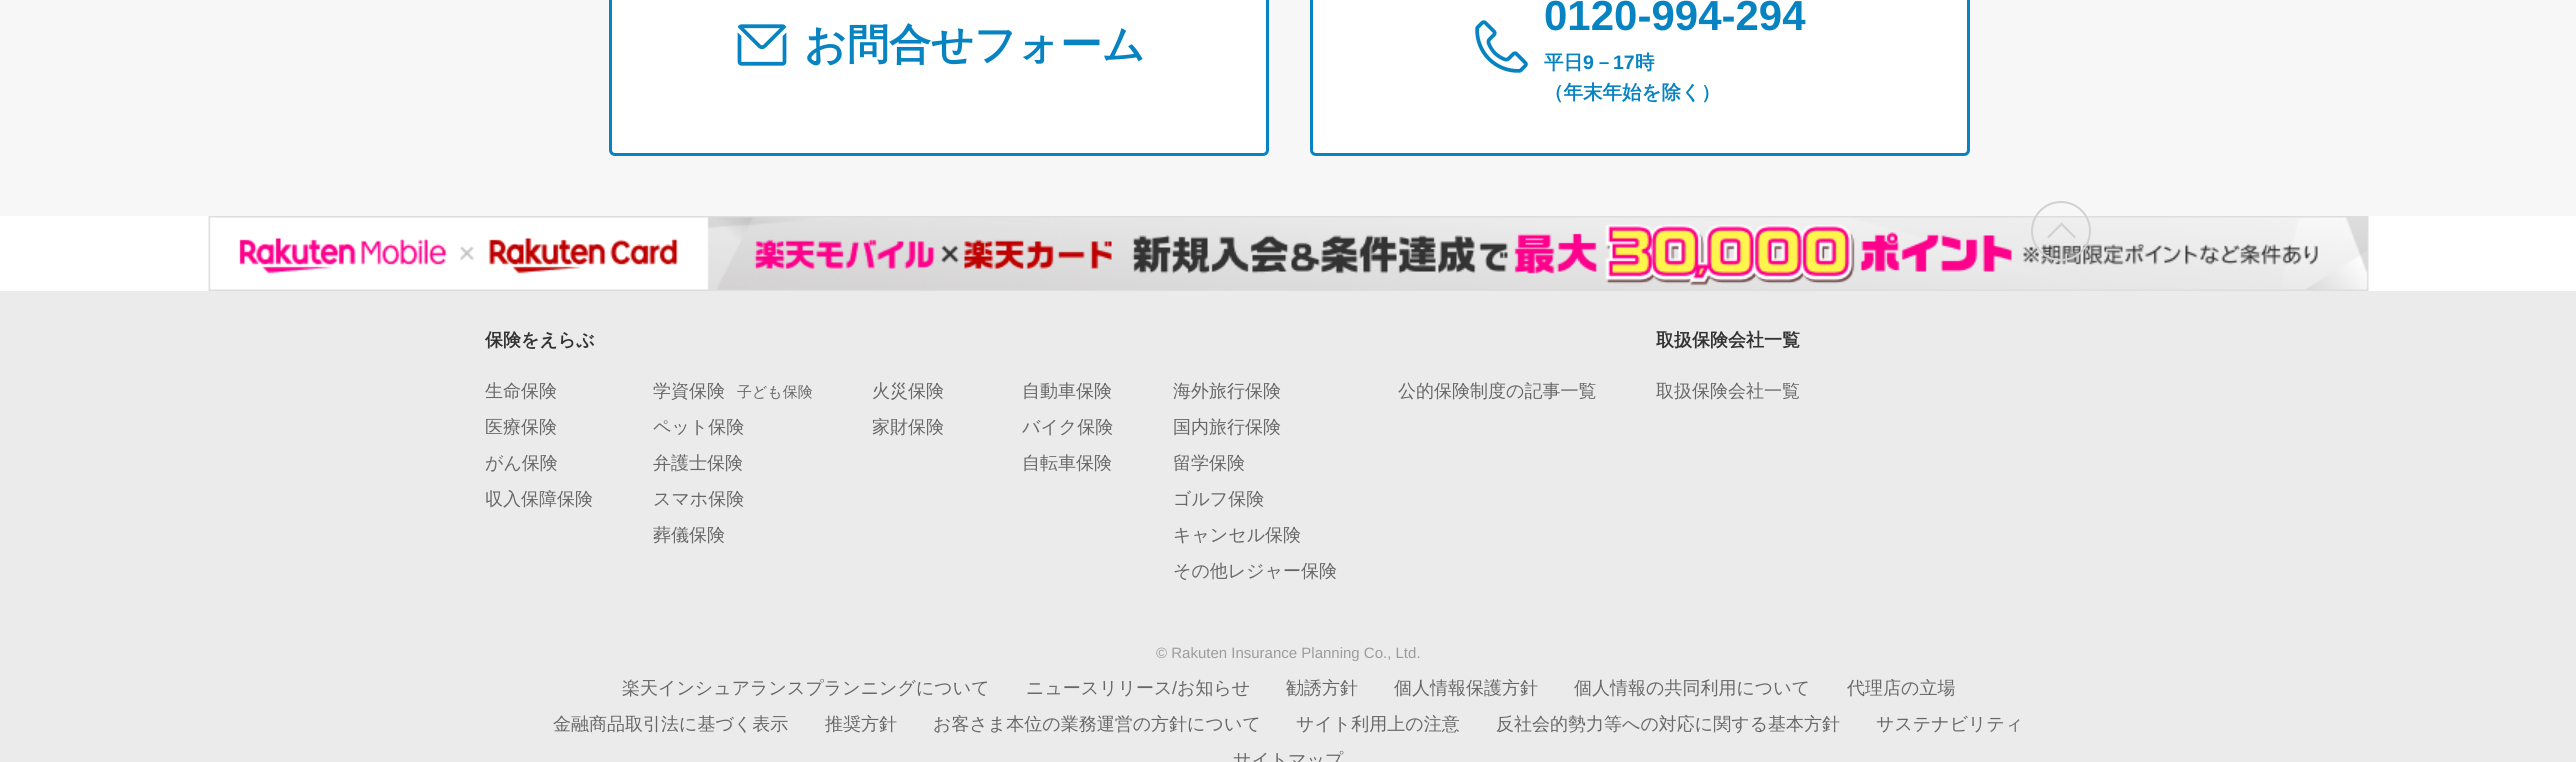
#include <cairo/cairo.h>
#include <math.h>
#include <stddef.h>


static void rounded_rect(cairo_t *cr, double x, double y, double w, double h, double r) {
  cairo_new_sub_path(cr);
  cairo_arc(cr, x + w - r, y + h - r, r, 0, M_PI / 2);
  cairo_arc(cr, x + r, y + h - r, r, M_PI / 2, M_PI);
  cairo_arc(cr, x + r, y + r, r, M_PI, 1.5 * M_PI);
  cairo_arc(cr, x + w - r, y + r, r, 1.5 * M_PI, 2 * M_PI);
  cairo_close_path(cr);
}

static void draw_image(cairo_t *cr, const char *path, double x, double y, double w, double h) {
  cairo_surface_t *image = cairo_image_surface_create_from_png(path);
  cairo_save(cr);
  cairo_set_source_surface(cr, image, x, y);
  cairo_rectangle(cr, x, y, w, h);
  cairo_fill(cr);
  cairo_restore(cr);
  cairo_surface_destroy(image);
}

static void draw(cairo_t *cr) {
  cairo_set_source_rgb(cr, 1, 1, 1);
  cairo_paint(cr);
  cairo_set_source_rgb(cr, 247 / 255.0, 247 / 255.0, 247 / 255.0);
  cairo_rectangle(cr, 0, 0, 2576, 216);
  cairo_fill(cr);
  cairo_set_source_rgb(cr, 1, 1, 1);
  rounded_rect(cr, 610.5, -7.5, 657, 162, 4.5);
  cairo_fill_preserve(cr);
  cairo_set_source_rgb(cr, 7 / 255.0, 131 / 255.0, 194 / 255.0);
  cairo_set_line_width(cr, 3);
  cairo_stroke(cr);
  draw_image(cr, "images/1.png", 737, 24, 50, 42);
  cairo_set_source_rgb(cr, 1, 1, 1);
  rounded_rect(cr, 1311.5, -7.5, 657, 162, 4.5);
  cairo_fill_preserve(cr);
  cairo_set_source_rgb(cr, 7 / 255.0, 131 / 255.0, 194 / 255.0);
  cairo_stroke(cr);
  draw_image(cr, "images/2.png", 1475, 20, 53, 53);
  draw_image(cr, "images/3.png", 208, 216, 2161, 75);
  cairo_arc(cr, 2061, 231, 29, 0, 2 * M_PI);
  cairo_set_source_rgb(cr, 209 / 255.0, 209 / 255.0, 209 / 255.0);
  cairo_set_line_width(cr, 2);
  cairo_stroke(cr);
  cairo_new_path(cr);
  cairo_move_to(cr, 2047, 237);
  cairo_line_to(cr, 2048.5, 238.5);
  cairo_line_to(cr, 2061.5, 225.5);
  cairo_line_to(cr, 2074.5, 238.5);
  cairo_line_to(cr, 2076, 237);
  cairo_line_to(cr, 2061.5, 222.5);
  cairo_close_path(cr);
  cairo_fill(cr);
  cairo_set_source_rgb(cr, 235 / 255.0, 235 / 255.0, 235 / 255.0);
  cairo_rectangle(cr, 0, 291, 2576, 471);
  cairo_fill(cr);
  cairo_select_font_face(cr, "WenQuanYi Zen Hei", CAIRO_FONT_SLANT_NORMAL, CAIRO_FONT_WEIGHT_BOLD);
  cairo_set_font_size(cr, 42);
  cairo_set_source_rgb(cr, 7 / 255.0, 131 / 255.0, 194 / 255.0);
  cairo_move_to(cr, 804, 59);
  cairo_show_text(cr, "お問合せフォーム");
  cairo_select_font_face(cr, "Liberation Sans", CAIRO_FONT_SLANT_NORMAL, CAIRO_FONT_WEIGHT_BOLD);
  cairo_move_to(cr, 1544, 30);
  cairo_show_text(cr, "0120-994-294");
  cairo_select_font_face(cr, "WenQuanYi Zen Hei", CAIRO_FONT_SLANT_NORMAL, CAIRO_FONT_WEIGHT_BOLD);
  cairo_set_font_size(cr, 19.5);
  cairo_move_to(cr, 1544, 69);
  cairo_show_text(cr, "平日");
  cairo_select_font_face(cr, "Liberation Sans", CAIRO_FONT_SLANT_NORMAL, CAIRO_FONT_WEIGHT_BOLD);
  cairo_move_to(cr, 1583, 69);
  cairo_show_text(cr, "9");
  cairo_select_font_face(cr, "WenQuanYi Zen Hei", CAIRO_FONT_SLANT_NORMAL, CAIRO_FONT_WEIGHT_BOLD);
  cairo_move_to(cr, 1594, 69);
  cairo_show_text(cr, "－");
  cairo_select_font_face(cr, "Liberation Sans", CAIRO_FONT_SLANT_NORMAL, CAIRO_FONT_WEIGHT_BOLD);
  cairo_move_to(cr, 1613, 69);
  cairo_show_text(cr, "17");
  cairo_select_font_face(cr, "WenQuanYi Zen Hei", CAIRO_FONT_SLANT_NORMAL, CAIRO_FONT_WEIGHT_BOLD);
  cairo_move_to(cr, 1635, 69);
  cairo_show_text(cr, "時");
  cairo_move_to(cr, 1544, 99);
  cairo_show_text(cr, "（年末年始を除く）");
  cairo_set_font_size(cr, 18);
  cairo_set_source_rgb(cr, 51 / 255.0, 51 / 255.0, 51 / 255.0);
  cairo_move_to(cr, 485, 346);
  cairo_show_text(cr, "保険をえらぶ");
  cairo_select_font_face(cr, "WenQuanYi Zen Hei Medium", CAIRO_FONT_SLANT_NORMAL, CAIRO_FONT_WEIGHT_NORMAL);
  cairo_set_source_rgb(cr, 104 / 255.0, 104 / 255.0, 104 / 255.0);
  cairo_move_to(cr, 485, 397);
  cairo_show_text(cr, "生命保険");
  cairo_move_to(cr, 485, 433);
  cairo_show_text(cr, "医療保険");
  cairo_move_to(cr, 485, 469);
  cairo_show_text(cr, "がん保険");
  cairo_move_to(cr, 485, 505);
  cairo_show_text(cr, "収入保障保険");
  cairo_move_to(cr, 653, 397);
  cairo_show_text(cr, "学資保険");
  cairo_set_font_size(cr, 15);
  cairo_move_to(cr, 737, 397);
  cairo_show_text(cr, "子ども保険");
  cairo_set_font_size(cr, 18);
  cairo_move_to(cr, 653, 433);
  cairo_show_text(cr, "ペット保険");
  cairo_move_to(cr, 653, 469);
  cairo_show_text(cr, "弁護士保険");
  cairo_move_to(cr, 653, 505);
  cairo_show_text(cr, "スマホ保険");
  cairo_move_to(cr, 653, 541);
  cairo_show_text(cr, "葬儀保険");
  cairo_move_to(cr, 872, 397);
  cairo_show_text(cr, "火災保険");
  cairo_move_to(cr, 872, 433);
  cairo_show_text(cr, "家財保険");
  cairo_move_to(cr, 1022, 397);
  cairo_show_text(cr, "自動車保険");
  cairo_move_to(cr, 1022, 433);
  cairo_show_text(cr, "バイク保険");
  cairo_move_to(cr, 1022, 469);
  cairo_show_text(cr, "自転車保険");
  cairo_move_to(cr, 1173, 397);
  cairo_show_text(cr, "海外旅行保険");
  cairo_move_to(cr, 1173, 433);
  cairo_show_text(cr, "国内旅行保険");
  cairo_move_to(cr, 1173, 469);
  cairo_show_text(cr, "留学保険");
  cairo_move_to(cr, 1173, 505);
  cairo_show_text(cr, "ゴルフ保険");
  cairo_move_to(cr, 1173, 541);
  cairo_show_text(cr, "キャンセル保険");
  cairo_move_to(cr, 1173, 577);
  cairo_show_text(cr, "その他レジャー保険");
  cairo_move_to(cr, 1398, 397);
  cairo_show_text(cr, "公的保険制度の記事一覧");
  cairo_select_font_face(cr, "WenQuanYi Zen Hei", CAIRO_FONT_SLANT_NORMAL, CAIRO_FONT_WEIGHT_BOLD);
  cairo_set_source_rgb(cr, 51 / 255.0, 51 / 255.0, 51 / 255.0);
  cairo_move_to(cr, 1656, 346);
  cairo_show_text(cr, "取扱保険会社一覧");
  cairo_select_font_face(cr, "WenQuanYi Zen Hei Medium", CAIRO_FONT_SLANT_NORMAL, CAIRO_FONT_WEIGHT_NORMAL);
  cairo_set_source_rgb(cr, 104 / 255.0, 104 / 255.0, 104 / 255.0);
  cairo_move_to(cr, 1656, 397);
  cairo_show_text(cr, "取扱保険会社一覧");
  cairo_select_font_face(cr, "Liberation Sans", CAIRO_FONT_SLANT_NORMAL, CAIRO_FONT_WEIGHT_NORMAL);
  cairo_set_font_size(cr, 15);
  cairo_set_source_rgb(cr, 156 / 255.0, 156 / 255.0, 156 / 255.0);
  cairo_move_to(cr, 1156, 658);
  cairo_show_text(cr, "© Rakuten Insurance Planning Co., Ltd.");
  cairo_select_font_face(cr, "WenQuanYi Zen Hei Medium", CAIRO_FONT_SLANT_NORMAL, CAIRO_FONT_WEIGHT_NORMAL);
  cairo_set_font_size(cr, 18);
  cairo_set_source_rgb(cr, 104 / 255.0, 104 / 255.0, 104 / 255.0);
  cairo_move_to(cr, 622, 694);
  cairo_show_text(cr, "楽天インシュアランスプランニングについて");
  cairo_move_to(cr, 1026, 694);
  cairo_show_text(cr, "ニュースリリース");
  cairo_select_font_face(cr, "Liberation Sans", CAIRO_FONT_SLANT_NORMAL, CAIRO_FONT_WEIGHT_NORMAL);
  cairo_move_to(cr, 1172, 694);
  cairo_show_text(cr, "/");
  cairo_select_font_face(cr, "WenQuanYi Zen Hei Medium", CAIRO_FONT_SLANT_NORMAL, CAIRO_FONT_WEIGHT_NORMAL);
  cairo_move_to(cr, 1177, 694);
  cairo_show_text(cr, "お知らせ");
  cairo_move_to(cr, 1286, 694);
  cairo_show_text(cr, "勧誘方針");
  cairo_move_to(cr, 1394, 694);
  cairo_show_text(cr, "個人情報保護方針");
  cairo_move_to(cr, 1574, 694);
  cairo_show_text(cr, "個人情報の共同利用について");
  cairo_move_to(cr, 1847, 694);
  cairo_show_text(cr, "代理店の立場");
  cairo_move_to(cr, 553, 730);
  cairo_show_text(cr, "金融商品取引法に基づく表示");
  cairo_move_to(cr, 825, 730);
  cairo_show_text(cr, "推奨方針");
  cairo_move_to(cr, 933, 730);
  cairo_show_text(cr, "お客さま本位の業務運営の方針について");
  cairo_move_to(cr, 1296, 730);
  cairo_show_text(cr, "サイト利用上の注意");
  cairo_move_to(cr, 1496, 730);
  cairo_show_text(cr, "反社会的勢力等への対応に関する基本方針");
  cairo_move_to(cr, 1876, 730);
  cairo_show_text(cr, "サステナビリティ");
  cairo_move_to(cr, 1233, 766);
  cairo_show_text(cr, "サイトマップ");
}

int main(void) {
  cairo_surface_t *surface = cairo_image_surface_create(CAIRO_FORMAT_RGB24, 2576, 762);
  cairo_t *cr = cairo_create(surface);
  cairo_font_options_t *options = cairo_font_options_create();
  cairo_font_options_set_hint_metrics(options, CAIRO_HINT_METRICS_OFF);
  cairo_font_options_set_hint_style(options, CAIRO_HINT_STYLE_NONE);
  cairo_set_font_options(cr, options);
  cairo_set_miter_limit(cr, 4);
  draw(cr);
  cairo_surface_write_to_png(surface, "out.png");
  cairo_font_options_destroy(options);
  cairo_destroy(cr);
  cairo_surface_destroy(surface);
  return 0;
}
